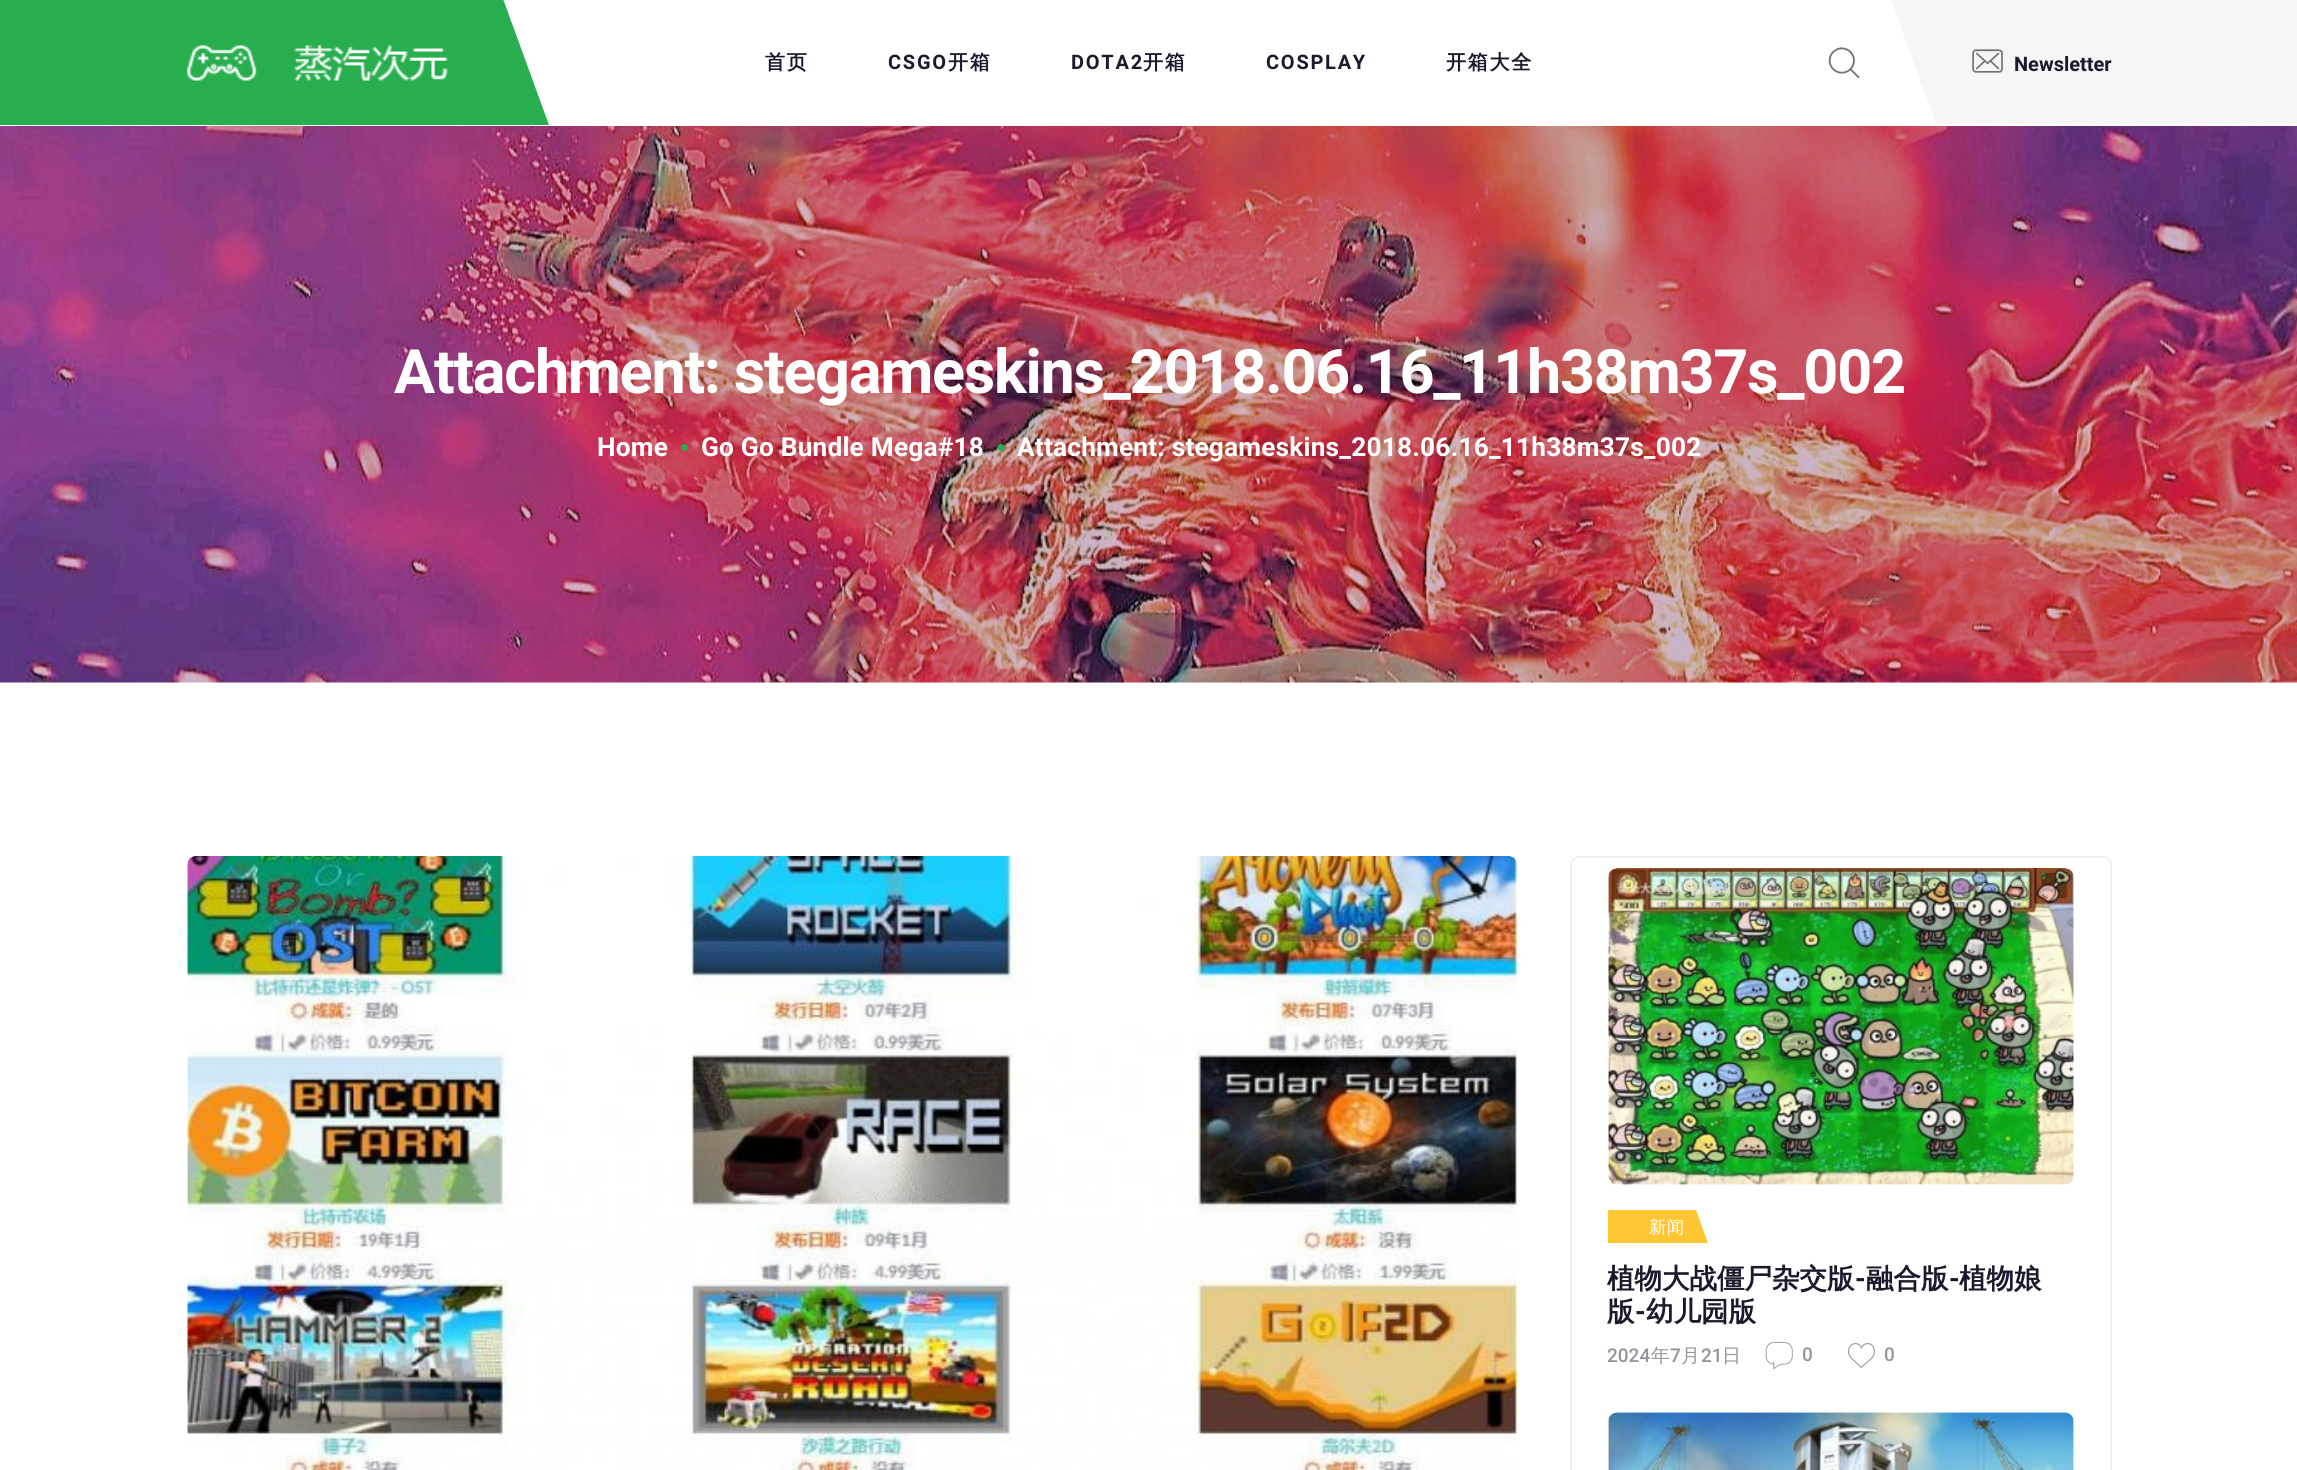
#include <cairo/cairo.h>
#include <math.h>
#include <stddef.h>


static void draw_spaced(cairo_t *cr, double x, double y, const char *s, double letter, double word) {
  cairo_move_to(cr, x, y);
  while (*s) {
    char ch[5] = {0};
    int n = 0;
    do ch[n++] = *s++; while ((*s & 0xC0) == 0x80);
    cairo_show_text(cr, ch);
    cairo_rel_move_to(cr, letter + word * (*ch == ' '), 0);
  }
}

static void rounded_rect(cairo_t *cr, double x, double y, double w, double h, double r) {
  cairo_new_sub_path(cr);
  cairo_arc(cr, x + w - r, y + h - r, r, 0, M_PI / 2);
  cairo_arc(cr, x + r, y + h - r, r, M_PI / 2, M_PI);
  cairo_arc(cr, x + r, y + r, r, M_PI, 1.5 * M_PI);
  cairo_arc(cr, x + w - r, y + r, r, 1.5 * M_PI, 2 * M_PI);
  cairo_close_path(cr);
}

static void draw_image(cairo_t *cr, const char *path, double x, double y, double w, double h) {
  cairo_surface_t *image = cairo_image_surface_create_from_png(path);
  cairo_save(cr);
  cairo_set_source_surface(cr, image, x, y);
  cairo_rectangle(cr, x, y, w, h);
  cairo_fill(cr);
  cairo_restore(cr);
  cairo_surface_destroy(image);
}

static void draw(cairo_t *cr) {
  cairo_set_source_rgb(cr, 1, 1, 1);
  cairo_paint(cr);
  cairo_set_source_rgb(cr, 40 / 255.0, 174 / 255.0, 78 / 255.0);
  cairo_new_path(cr);
  cairo_move_to(cr, -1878, -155);
  cairo_line_to(cr, 447, -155);
  cairo_line_to(cr, 549, 125);
  cairo_line_to(cr, -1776, 125);
  cairo_close_path(cr);
  cairo_fill(cr);
  draw_image(cr, "images/1.png", 187, 45, 261, 36);
  draw_image(cr, "images/2.png", 1828, 47, 32, 31);
  cairo_set_source_rgb(cr, 246 / 255.0, 246 / 255.0, 246 / 255.0);
  cairo_new_path(cr);
  cairo_move_to(cr, 1814, -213);
  cairo_line_to(cr, 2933, -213);
  cairo_line_to(cr, 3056, 124);
  cairo_line_to(cr, 1936, 124);
  cairo_close_path(cr);
  cairo_fill(cr);
  draw_image(cr, "images/3.png", 1972, 49, 31, 24);
  draw_image(cr, "images/4.png", 0, 126, 2297, 557);
  draw_image(cr, "images/5.png", 680, 444, 8, 7);
  draw_image(cr, "images/6.png", 997, 444, 8, 7);
  draw_image(cr, "images/7.png", 187, 856, 1330, 614);
  rounded_rect(cr, 1571, 857, 540, 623, 8);
  cairo_set_source_rgb(cr, 239 / 255.0, 239 / 255.0, 240 / 255.0);
  cairo_stroke(cr);
  draw_image(cr, "images/8.png", 1608, 868, 466, 317);
  cairo_save(cr);
  cairo_rectangle(cr, 1608, 868, 466, 506);
  cairo_clip(cr);
  cairo_set_source_rgb(cr, 254 / 255.0, 198 / 255.0, 50 / 255.0);
  cairo_new_path(cr);
  cairo_move_to(cr, 1589, 1210);
  cairo_line_to(cr, 1696, 1210);
  cairo_line_to(cr, 1708, 1243);
  cairo_line_to(cr, 1601, 1243);
  cairo_close_path(cr);
  cairo_fill(cr);
  cairo_restore(cr);
  draw_image(cr, "images/9.png", 1765, 1342, 28, 27);
  draw_image(cr, "images/10.png", 1848, 1343, 27, 25);
  draw_image(cr, "images/11.png", 1608, 1412, 466, 58);
  cairo_select_font_face(cr, "WenQuanYi Zen Hei", CAIRO_FONT_SLANT_NORMAL, CAIRO_FONT_WEIGHT_BOLD);
  cairo_set_font_size(cr, 20);
  cairo_set_source_rgb(cr, 28 / 255.0, 25 / 255.0, 44 / 255.0);
  draw_spaced(cr, 765, 69, "首页", 1.75, 0);
  cairo_select_font_face(cr, "Roboto", CAIRO_FONT_SLANT_NORMAL, CAIRO_FONT_WEIGHT_BOLD);
  draw_spaced(cr, 888, 69, "CSGO", 1.75, 0);
  cairo_select_font_face(cr, "WenQuanYi Zen Hei", CAIRO_FONT_SLANT_NORMAL, CAIRO_FONT_WEIGHT_BOLD);
  draw_spaced(cr, 948, 69, "开箱", 1.75, 0);
  cairo_select_font_face(cr, "Roboto", CAIRO_FONT_SLANT_NORMAL, CAIRO_FONT_WEIGHT_BOLD);
  draw_spaced(cr, 1071, 69, "DOTA2", 1.75, 0);
  cairo_select_font_face(cr, "WenQuanYi Zen Hei", CAIRO_FONT_SLANT_NORMAL, CAIRO_FONT_WEIGHT_BOLD);
  draw_spaced(cr, 1143, 69, "开箱", 1.75, 0);
  cairo_select_font_face(cr, "Roboto", CAIRO_FONT_SLANT_NORMAL, CAIRO_FONT_WEIGHT_BOLD);
  draw_spaced(cr, 1266, 69, "COSPLAY", 1.75, 0);
  cairo_select_font_face(cr, "WenQuanYi Zen Hei", CAIRO_FONT_SLANT_NORMAL, CAIRO_FONT_WEIGHT_BOLD);
  draw_spaced(cr, 1446, 69, "开箱大全", 1.75, 0);
  cairo_select_font_face(cr, "Roboto", CAIRO_FONT_SLANT_NORMAL, CAIRO_FONT_WEIGHT_BOLD);
  cairo_move_to(cr, 2014, 71);
  cairo_show_text(cr, "Newsletter");
  cairo_set_font_size(cr, 61.25);
  cairo_set_source_rgb(cr, 1, 1, 1);
  draw_spaced(cr, 394, 393, "Attachment: stegameskins_2018.06.16_11h38m37s_002", -1.3, 0);
  cairo_set_font_size(cr, 26.25);
  draw_spaced(cr, 597, 456, "Home", 0.2, 0);
  draw_spaced(cr, 701, 456, "Go Go Bundle Mega#18", 0.2, 0);
  draw_spaced(cr, 1017, 456, "Attachment: stegameskins_2018.06.16_11h38m37s_002", 0.2, 0);
  cairo_select_font_face(cr, "WenQuanYi Zen Hei Medium", CAIRO_FONT_SLANT_NORMAL, CAIRO_FONT_WEIGHT_NORMAL);
  cairo_set_font_size(cr, 17.5);
  draw_spaced(cr, 1649, 1233, "新闻", 0.2, 0);
  cairo_select_font_face(cr, "WenQuanYi Zen Hei", CAIRO_FONT_SLANT_NORMAL, CAIRO_FONT_WEIGHT_BOLD);
  cairo_set_font_size(cr, 27.5);
  cairo_set_source_rgb(cr, 28 / 255.0, 25 / 255.0, 44 / 255.0);
  cairo_move_to(cr, 1607, 1288);
  cairo_show_text(cr, "植物大战僵尸杂交版");
  cairo_select_font_face(cr, "Roboto", CAIRO_FONT_SLANT_NORMAL, CAIRO_FONT_WEIGHT_BOLD);
  cairo_move_to(cr, 1855, 1288);
  cairo_show_text(cr, "-");
  cairo_select_font_face(cr, "WenQuanYi Zen Hei", CAIRO_FONT_SLANT_NORMAL, CAIRO_FONT_WEIGHT_BOLD);
  cairo_move_to(cr, 1866, 1288);
  cairo_show_text(cr, "融合版");
  cairo_select_font_face(cr, "Roboto", CAIRO_FONT_SLANT_NORMAL, CAIRO_FONT_WEIGHT_BOLD);
  cairo_move_to(cr, 1949, 1288);
  cairo_show_text(cr, "-");
  cairo_select_font_face(cr, "WenQuanYi Zen Hei", CAIRO_FONT_SLANT_NORMAL, CAIRO_FONT_WEIGHT_BOLD);
  cairo_move_to(cr, 1959, 1288);
  cairo_show_text(cr, "植物娘");
  cairo_move_to(cr, 1607, 1321);
  cairo_show_text(cr, "版");
  cairo_select_font_face(cr, "Roboto", CAIRO_FONT_SLANT_NORMAL, CAIRO_FONT_WEIGHT_BOLD);
  cairo_move_to(cr, 1635, 1321);
  cairo_show_text(cr, "-");
  cairo_select_font_face(cr, "WenQuanYi Zen Hei", CAIRO_FONT_SLANT_NORMAL, CAIRO_FONT_WEIGHT_BOLD);
  cairo_move_to(cr, 1646, 1321);
  cairo_show_text(cr, "幼儿园版");
  cairo_select_font_face(cr, "Roboto Medium", CAIRO_FONT_SLANT_NORMAL, CAIRO_FONT_WEIGHT_NORMAL);
  cairo_set_font_size(cr, 19);
  cairo_set_source_rgb(cr, 148 / 255.0, 148 / 255.0, 155 / 255.0);
  cairo_move_to(cr, 1607, 1362);
  cairo_show_text(cr, "2024");
  cairo_select_font_face(cr, "WenQuanYi Zen Hei Medium", CAIRO_FONT_SLANT_NORMAL, CAIRO_FONT_WEIGHT_NORMAL);
  cairo_move_to(cr, 1651, 1362);
  cairo_show_text(cr, "年");
  cairo_select_font_face(cr, "Roboto Medium", CAIRO_FONT_SLANT_NORMAL, CAIRO_FONT_WEIGHT_NORMAL);
  cairo_move_to(cr, 1670, 1362);
  cairo_show_text(cr, "7");
  cairo_select_font_face(cr, "WenQuanYi Zen Hei Medium", CAIRO_FONT_SLANT_NORMAL, CAIRO_FONT_WEIGHT_NORMAL);
  cairo_move_to(cr, 1681, 1362);
  cairo_show_text(cr, "月");
  cairo_select_font_face(cr, "Roboto Medium", CAIRO_FONT_SLANT_NORMAL, CAIRO_FONT_WEIGHT_NORMAL);
  cairo_move_to(cr, 1701, 1362);
  cairo_show_text(cr, "21");
  cairo_select_font_face(cr, "WenQuanYi Zen Hei Medium", CAIRO_FONT_SLANT_NORMAL, CAIRO_FONT_WEIGHT_NORMAL);
  cairo_move_to(cr, 1722, 1362);
  cairo_show_text(cr, "日");
  cairo_select_font_face(cr, "Roboto Medium", CAIRO_FONT_SLANT_NORMAL, CAIRO_FONT_WEIGHT_NORMAL);
  cairo_move_to(cr, 1802, 1361);
  cairo_show_text(cr, "0");
  cairo_move_to(cr, 1884, 1361);
  cairo_show_text(cr, "0");
}

int main(void) {
  cairo_surface_t *surface = cairo_image_surface_create(CAIRO_FORMAT_RGB24, 2297, 1470);
  cairo_t *cr = cairo_create(surface);
  cairo_font_options_t *options = cairo_font_options_create();
  cairo_font_options_set_hint_metrics(options, CAIRO_HINT_METRICS_OFF);
  cairo_font_options_set_hint_style(options, CAIRO_HINT_STYLE_NONE);
  cairo_set_font_options(cr, options);
  cairo_set_miter_limit(cr, 4);
  draw(cr);
  cairo_surface_write_to_png(surface, "out.png");
  cairo_font_options_destroy(options);
  cairo_destroy(cr);
  cairo_surface_destroy(surface);
  return 0;
}
